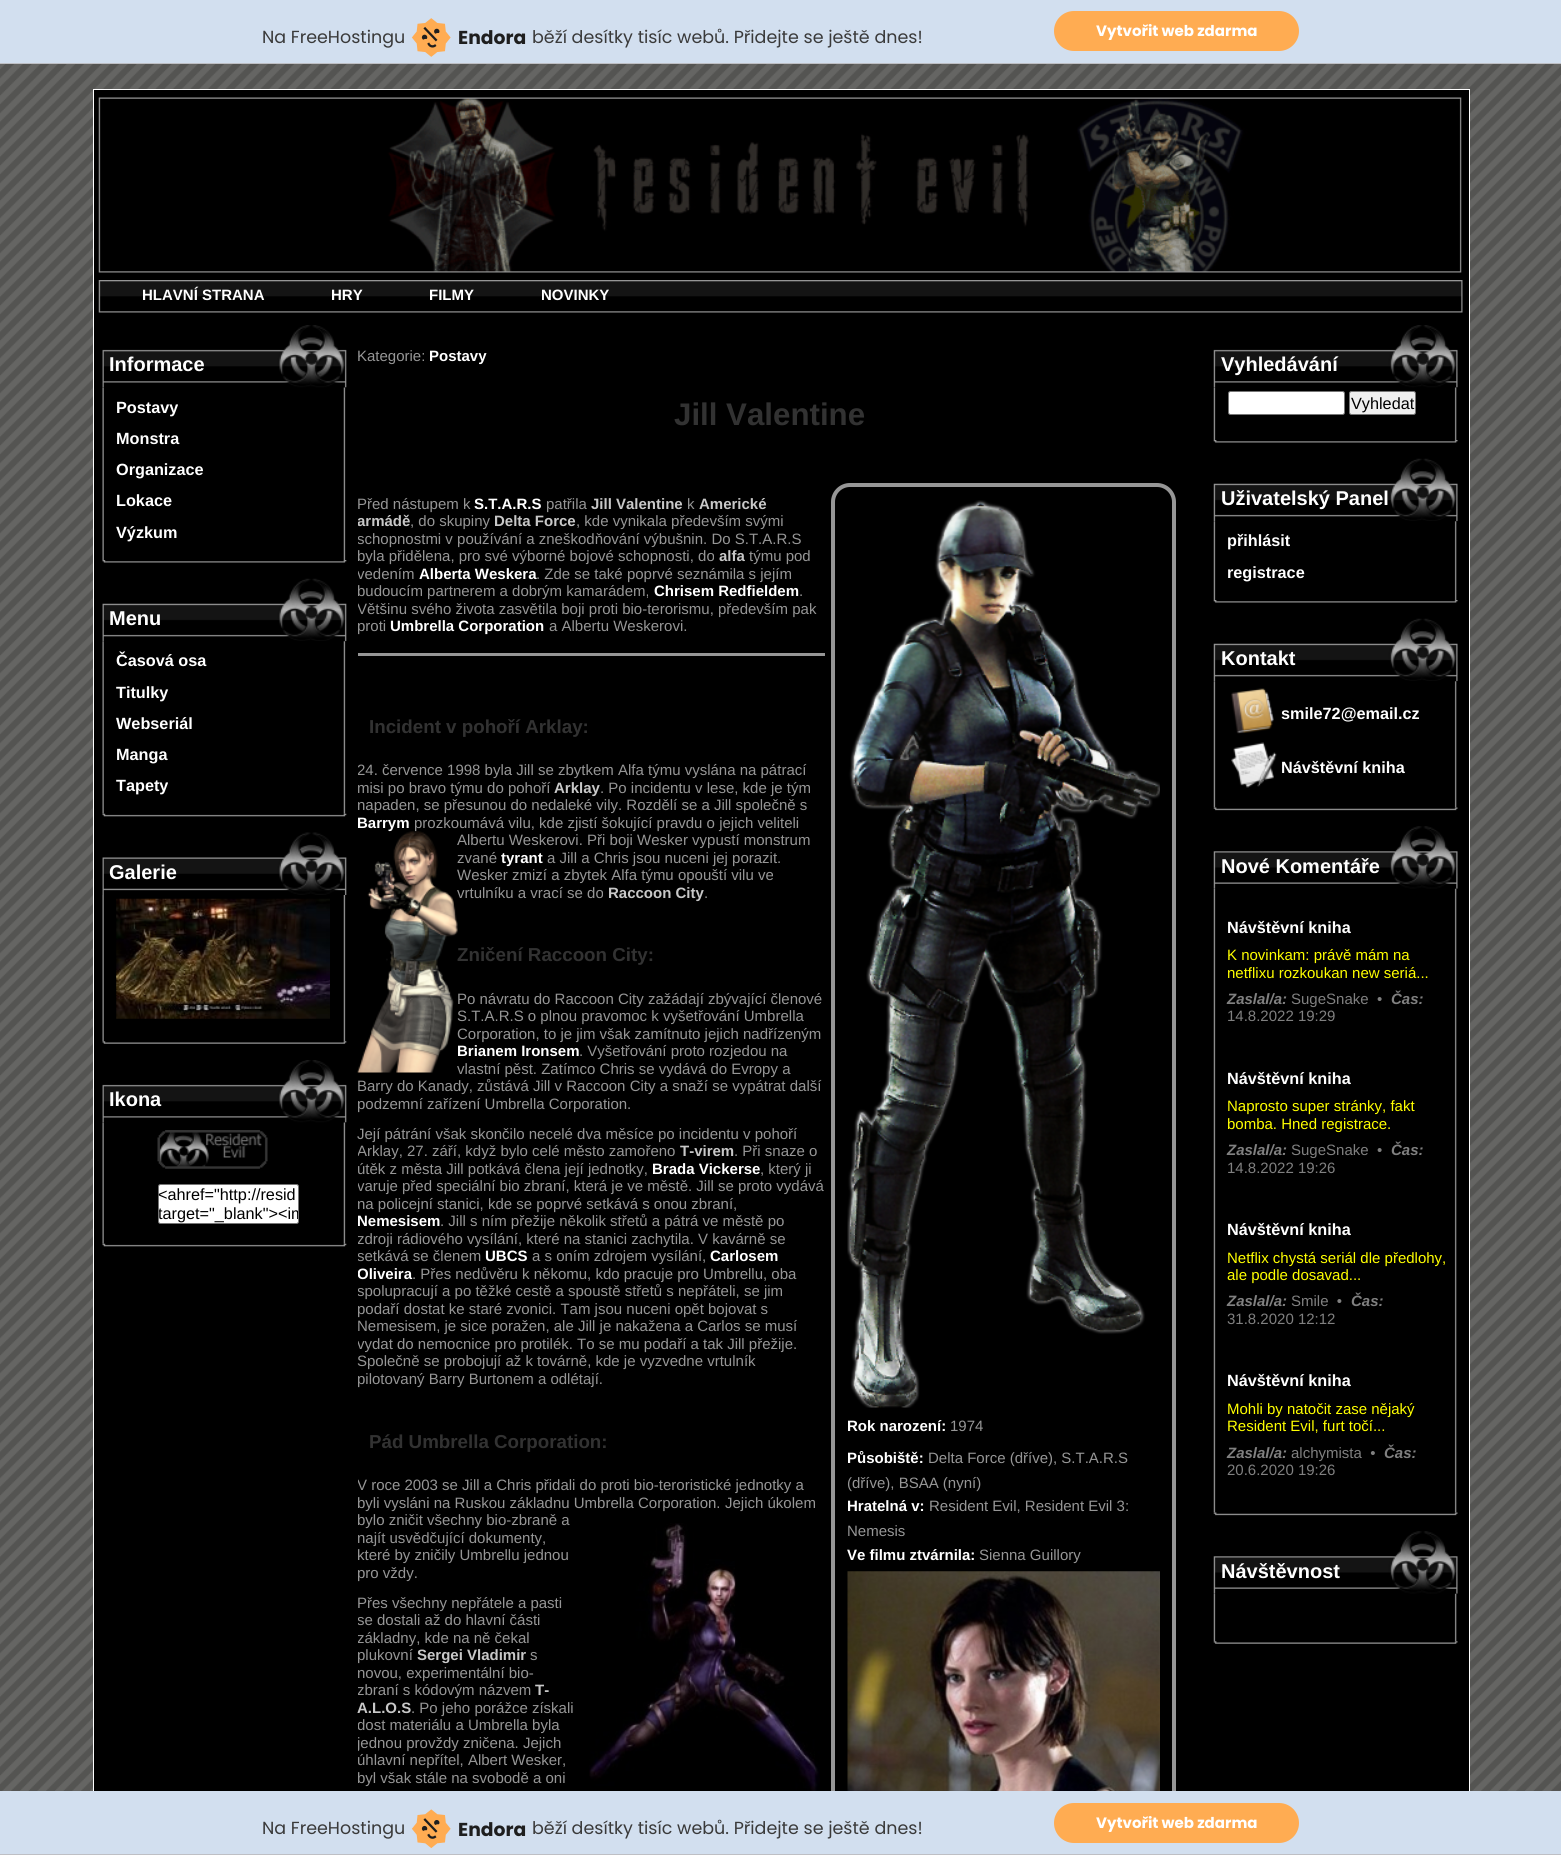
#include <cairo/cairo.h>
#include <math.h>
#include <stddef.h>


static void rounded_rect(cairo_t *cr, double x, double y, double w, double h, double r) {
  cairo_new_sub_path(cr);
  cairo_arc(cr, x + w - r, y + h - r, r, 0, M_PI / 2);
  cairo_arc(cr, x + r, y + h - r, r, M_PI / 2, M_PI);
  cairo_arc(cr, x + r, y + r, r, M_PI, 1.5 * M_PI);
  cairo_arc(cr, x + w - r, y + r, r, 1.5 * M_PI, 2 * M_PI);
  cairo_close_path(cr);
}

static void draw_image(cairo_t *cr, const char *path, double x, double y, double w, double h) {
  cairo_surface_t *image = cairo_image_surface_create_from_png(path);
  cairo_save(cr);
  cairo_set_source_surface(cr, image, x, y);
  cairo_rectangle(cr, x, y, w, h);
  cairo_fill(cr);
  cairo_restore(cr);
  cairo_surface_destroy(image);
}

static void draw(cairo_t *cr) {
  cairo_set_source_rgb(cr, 1, 1, 1);
  cairo_paint(cr);
  draw_image(cr, "images/1.png", 0, 64, 1561, 1727);
  cairo_set_source_rgb(cr, 210 / 255.0, 223 / 255.0, 239 / 255.0);
  cairo_rectangle(cr, 0, 0, 1561, 63);
  cairo_fill(cr);
  cairo_set_source_rgb(cr, 190 / 255.0, 191 / 255.0, 196 / 255.0);
  cairo_rectangle(cr, 0, 63, 1561, 1);
  cairo_fill(cr);
  draw_image(cr, "images/2.png", 411, 18, 40, 39);
  cairo_set_source_rgb(cr, 1, 172 / 255.0, 82 / 255.0);
  rounded_rect(cr, 1054, 11, 245, 40, 20);
  cairo_fill(cr);
  cairo_set_source_rgb(cr, 0, 0, 0);
  cairo_rectangle(cr, 94, 90, 1375, 1701);
  cairo_fill(cr);
  cairo_rectangle(cr, 93.5, 89.5, 1376, 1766);
  cairo_set_source_rgb(cr, 1, 1, 1);
  cairo_set_line_width(cr, 1);
  cairo_stroke(cr);
  draw_image(cr, "images/3.png", 98, 97, 1364, 176);
  draw_image(cr, "images/4.png", 98, 280, 1365, 33);
  draw_image(cr, "images/5.png", 102, 325, 245, 63);
  draw_image(cr, "images/6.png", 102, 387, 245, 173);
  draw_image(cr, "images/7.png", 102, 560, 245, 3);
  draw_image(cr, "images/8.png", 102, 578, 245, 64);
  draw_image(cr, "images/9.png", 102, 641, 245, 173);
  draw_image(cr, "images/10.png", 102, 813, 245, 4);
  draw_image(cr, "images/11.png", 102, 832, 245, 63);
  draw_image(cr, "images/12.png", 102, 895, 244, 147);
  draw_image(cr, "images/13.png", 116, 898, 214, 121);
  draw_image(cr, "images/14.png", 102, 1041, 245, 3);
  draw_image(cr, "images/5.png", 102, 1060, 245, 63);
  draw_image(cr, "images/15.png", 102, 1122, 245, 122);
  draw_image(cr, "images/16.png", 157, 1130, 111, 39);
  rounded_rect(cr, 158.5, 1184.5, 140, 39, 2);
  cairo_fill_preserve(cr);
  cairo_set_source_rgb(cr, 118 / 255.0, 118 / 255.0, 118 / 255.0);
  cairo_stroke(cr);
  draw_image(cr, "images/10.png", 102, 1243, 245, 4);
  cairo_set_source_rgb(cr, 150 / 255.0, 150 / 255.0, 150 / 255.0);
  cairo_rectangle(cr, 358, 653, 467, 3);
  cairo_fill(cr);
  draw_image(cr, "images/17.png", 357, 831, 101, 242);
  rounded_rect(cr, 833, 485, 341, 1339, 17);
  cairo_set_line_width(cr, 4);
  cairo_stroke(cr);
  draw_image(cr, "images/18.png", 847, 500, 313, 908);
  draw_image(cr, "images/19.png", 847, 1571, 313, 220);
  draw_image(cr, "images/20.png", 589, 1523, 231, 268);
  draw_image(cr, "images/21.png", 1213, 325, 245, 63);
  draw_image(cr, "images/22.png", 1213, 387, 245, 53);
  cairo_set_source_rgb(cr, 1, 1, 1);
  rounded_rect(cr, 1228.5, 391.5, 116, 23, 2);
  cairo_fill_preserve(cr);
  cairo_set_source_rgb(cr, 118 / 255.0, 118 / 255.0, 118 / 255.0);
  cairo_set_line_width(cr, 1);
  cairo_stroke(cr);
  cairo_set_source_rgb(cr, 239 / 255.0, 239 / 255.0, 239 / 255.0);
  rounded_rect(cr, 1349.5, 391.5, 66, 23, 2);
  cairo_fill_preserve(cr);
  cairo_set_source_rgb(cr, 118 / 255.0, 118 / 255.0, 118 / 255.0);
  cairo_stroke(cr);
  draw_image(cr, "images/23.png", 1213, 440, 245, 3);
  draw_image(cr, "images/24.png", 1213, 458, 245, 64);
  draw_image(cr, "images/25.png", 1213, 521, 245, 79);
  draw_image(cr, "images/23.png", 1213, 600, 245, 3);
  draw_image(cr, "images/24.png", 1213, 618, 245, 64);
  draw_image(cr, "images/26.png", 1213, 681, 245, 127);
  draw_image(cr, "images/27.png", 1231, 688, 43, 46);
  draw_image(cr, "images/28.png", 1231, 742, 46, 46);
  draw_image(cr, "images/29.png", 1213, 807, 245, 4);
  draw_image(cr, "images/30.png", 1213, 826, 245, 63);
  draw_image(cr, "images/31.png", 1213, 888, 245, 625);
  draw_image(cr, "images/29.png", 1213, 1512, 245, 4);
  draw_image(cr, "images/30.png", 1213, 1531, 245, 63);
  draw_image(cr, "images/32.png", 1213, 1593, 245, 49);
  draw_image(cr, "images/33.png", 1213, 1641, 245, 3);
  cairo_set_source_rgb(cr, 210 / 255.0, 223 / 255.0, 239 / 255.0);
  cairo_rectangle(cr, 0, 1791, 1561, 63);
  cairo_fill(cr);
  cairo_set_source_rgb(cr, 190 / 255.0, 191 / 255.0, 196 / 255.0);
  cairo_rectangle(cr, 0, 1854, 1561, 1);
  cairo_fill(cr);
  draw_image(cr, "images/34.png", 411, 1809, 40, 40);
  cairo_set_source_rgb(cr, 1, 172 / 255.0, 82 / 255.0);
  rounded_rect(cr, 1054, 1803, 245, 40, 20);
  cairo_fill(cr);
  cairo_select_font_face(cr, "Poppins", CAIRO_FONT_SLANT_NORMAL, CAIRO_FONT_WEIGHT_NORMAL);
  cairo_set_font_size(cr, 17.5);
  cairo_set_source_rgb(cr, 58 / 255.0, 58 / 255.0, 58 / 255.0);
  cairo_move_to(cr, 262, 43);
  cairo_show_text(cr, "Na FreeHostingu");
  cairo_select_font_face(cr, "Poppins", CAIRO_FONT_SLANT_NORMAL, CAIRO_FONT_WEIGHT_BOLD);
  cairo_set_font_size(cr, 18.75);
  cairo_set_source_rgb(cr, 30 / 255.0, 30 / 255.0, 30 / 255.0);
  cairo_move_to(cr, 458, 44);
  cairo_show_text(cr, "Endora");
  cairo_select_font_face(cr, "Poppins", CAIRO_FONT_SLANT_NORMAL, CAIRO_FONT_WEIGHT_NORMAL);
  cairo_set_font_size(cr, 17.5);
  cairo_set_source_rgb(cr, 58 / 255.0, 58 / 255.0, 58 / 255.0);
  cairo_move_to(cr, 532, 43);
  cairo_show_text(cr, "běží desítky tisíc webů. Přidejte se ještě dnes!");
  cairo_select_font_face(cr, "Poppins", CAIRO_FONT_SLANT_NORMAL, CAIRO_FONT_WEIGHT_BOLD);
  cairo_set_font_size(cr, 15);
  cairo_set_source_rgb(cr, 1, 1, 1);
  cairo_move_to(cr, 1096, 36);
  cairo_show_text(cr, "Vytvořit web zdarma");
  cairo_select_font_face(cr, "Liberation Sans", CAIRO_FONT_SLANT_NORMAL, CAIRO_FONT_WEIGHT_BOLD);
  cairo_move_to(cr, 142, 300);
  cairo_show_text(cr, "HLAVNÍ STRANA");
  cairo_move_to(cr, 331, 300);
  cairo_show_text(cr, "HRY");
  cairo_move_to(cr, 429, 300);
  cairo_show_text(cr, "FILMY");
  cairo_move_to(cr, 541, 300);
  cairo_show_text(cr, "NOVINKY");
  cairo_set_font_size(cr, 20);
  cairo_move_to(cr, 109, 371);
  cairo_show_text(cr, "Informace");
  cairo_set_font_size(cr, 16.25);
  cairo_move_to(cr, 116, 413);
  cairo_show_text(cr, "Postavy");
  cairo_move_to(cr, 116, 444);
  cairo_show_text(cr, "Monstra");
  cairo_move_to(cr, 116, 475);
  cairo_show_text(cr, "Organizace");
  cairo_move_to(cr, 116, 506);
  cairo_show_text(cr, "Lokace");
  cairo_move_to(cr, 116, 538);
  cairo_show_text(cr, "Výzkum");
  cairo_set_font_size(cr, 20);
  cairo_move_to(cr, 109, 625);
  cairo_show_text(cr, "Menu");
  cairo_set_font_size(cr, 16.25);
  cairo_move_to(cr, 116, 666);
  cairo_show_text(cr, "Časová osa");
  cairo_move_to(cr, 116, 698);
  cairo_show_text(cr, "Titulky");
  cairo_move_to(cr, 116, 729);
  cairo_show_text(cr, "Webseriál");
  cairo_move_to(cr, 116, 760);
  cairo_show_text(cr, "Manga");
  cairo_move_to(cr, 116, 791);
  cairo_show_text(cr, "Tapety");
  cairo_set_font_size(cr, 20);
  cairo_move_to(cr, 109, 879);
  cairo_show_text(cr, "Galerie");
  cairo_move_to(cr, 109, 1106);
  cairo_show_text(cr, "Ikona");
  cairo_select_font_face(cr, "Liberation Sans", CAIRO_FONT_SLANT_NORMAL, CAIRO_FONT_WEIGHT_NORMAL);
  cairo_set_font_size(cr, 16.25);
  cairo_set_source_rgb(cr, 0, 0, 0);
  cairo_move_to(cr, 158, 1200);
  cairo_show_text(cr, "<ahref=\"http://resid");
  cairo_save(cr);
  cairo_rectangle(cr, 159, 1185, 139, 38);
  cairo_clip(cr);
  cairo_move_to(cr, 158, 1219);
  cairo_show_text(cr, "target=\"_blank\"><im");
  cairo_restore(cr);
  cairo_set_font_size(cr, 15);
  cairo_set_source_rgb(cr, 150 / 255.0, 150 / 255.0, 150 / 255.0);
  cairo_move_to(cr, 357, 361);
  cairo_show_text(cr, "Kategorie:");
  cairo_select_font_face(cr, "Liberation Sans", CAIRO_FONT_SLANT_NORMAL, CAIRO_FONT_WEIGHT_BOLD);
  cairo_set_source_rgb(cr, 1, 1, 1);
  cairo_move_to(cr, 429, 361);
  cairo_show_text(cr, "Postavy");
  cairo_set_font_size(cr, 31.25);
  cairo_set_source_rgb(cr, 50 / 255.0, 50 / 255.0, 50 / 255.0);
  cairo_move_to(cr, 674, 425);
  cairo_show_text(cr, "Jill Valentine");
  cairo_select_font_face(cr, "Liberation Sans", CAIRO_FONT_SLANT_NORMAL, CAIRO_FONT_WEIGHT_NORMAL);
  cairo_set_font_size(cr, 15);
  cairo_set_source_rgb(cr, 150 / 255.0, 150 / 255.0, 150 / 255.0);
  cairo_move_to(cr, 357, 509);
  cairo_show_text(cr, "Před nástupem k");
  cairo_select_font_face(cr, "Liberation Sans", CAIRO_FONT_SLANT_NORMAL, CAIRO_FONT_WEIGHT_BOLD);
  cairo_set_source_rgb(cr, 1, 1, 1);
  cairo_move_to(cr, 474, 509);
  cairo_show_text(cr, "S.T.A.R.S");
  cairo_select_font_face(cr, "Liberation Sans", CAIRO_FONT_SLANT_NORMAL, CAIRO_FONT_WEIGHT_NORMAL);
  cairo_set_source_rgb(cr, 150 / 255.0, 150 / 255.0, 150 / 255.0);
  cairo_move_to(cr, 546, 509);
  cairo_show_text(cr, "patřila");
  cairo_select_font_face(cr, "Liberation Sans", CAIRO_FONT_SLANT_NORMAL, CAIRO_FONT_WEIGHT_BOLD);
  cairo_set_source_rgb(cr, 200 / 255.0, 200 / 255.0, 200 / 255.0);
  cairo_move_to(cr, 591, 509);
  cairo_show_text(cr, "Jill Valentine");
  cairo_select_font_face(cr, "Liberation Sans", CAIRO_FONT_SLANT_NORMAL, CAIRO_FONT_WEIGHT_NORMAL);
  cairo_set_source_rgb(cr, 150 / 255.0, 150 / 255.0, 150 / 255.0);
  cairo_move_to(cr, 687, 509);
  cairo_show_text(cr, "k");
  cairo_select_font_face(cr, "Liberation Sans", CAIRO_FONT_SLANT_NORMAL, CAIRO_FONT_WEIGHT_BOLD);
  cairo_set_source_rgb(cr, 200 / 255.0, 200 / 255.0, 200 / 255.0);
  cairo_move_to(cr, 699, 509);
  cairo_show_text(cr, "Americké");
  cairo_save(cr);
  cairo_rectangle(cr, 358, 348, 825, 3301);
  cairo_clip(cr);
  cairo_move_to(cr, 357, 526);
  cairo_show_text(cr, "armádě");
  cairo_restore(cr);
  cairo_select_font_face(cr, "Liberation Sans", CAIRO_FONT_SLANT_NORMAL, CAIRO_FONT_WEIGHT_NORMAL);
  cairo_set_source_rgb(cr, 150 / 255.0, 150 / 255.0, 150 / 255.0);
  cairo_move_to(cr, 410, 526);
  cairo_show_text(cr, ", do skupiny");
  cairo_select_font_face(cr, "Liberation Sans", CAIRO_FONT_SLANT_NORMAL, CAIRO_FONT_WEIGHT_BOLD);
  cairo_set_source_rgb(cr, 200 / 255.0, 200 / 255.0, 200 / 255.0);
  cairo_move_to(cr, 494, 526);
  cairo_show_text(cr, "Delta Force");
  cairo_select_font_face(cr, "Liberation Sans", CAIRO_FONT_SLANT_NORMAL, CAIRO_FONT_WEIGHT_NORMAL);
  cairo_set_source_rgb(cr, 150 / 255.0, 150 / 255.0, 150 / 255.0);
  cairo_move_to(cr, 576, 526);
  cairo_show_text(cr, ", kde vynikala především svými");
  cairo_save(cr);
  cairo_rectangle(cr, 358, 348, 825, 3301);
  cairo_clip(cr);
  cairo_move_to(cr, 357, 544);
  cairo_show_text(cr, "schopnostmi v používání a zneškodňování výbušnin. Do S.T.A.R.S");
  cairo_move_to(cr, 357, 561);
  cairo_show_text(cr, "byla přidělena, pro své výborné bojové schopnosti, do");
  cairo_restore(cr);
  cairo_select_font_face(cr, "Liberation Sans", CAIRO_FONT_SLANT_NORMAL, CAIRO_FONT_WEIGHT_BOLD);
  cairo_set_source_rgb(cr, 200 / 255.0, 200 / 255.0, 200 / 255.0);
  cairo_move_to(cr, 719, 561);
  cairo_show_text(cr, "alfa");
  cairo_select_font_face(cr, "Liberation Sans", CAIRO_FONT_SLANT_NORMAL, CAIRO_FONT_WEIGHT_NORMAL);
  cairo_set_source_rgb(cr, 150 / 255.0, 150 / 255.0, 150 / 255.0);
  cairo_move_to(cr, 749, 561);
  cairo_show_text(cr, "týmu pod");
  cairo_save(cr);
  cairo_rectangle(cr, 358, 348, 825, 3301);
  cairo_clip(cr);
  cairo_move_to(cr, 357, 579);
  cairo_show_text(cr, "vedením");
  cairo_restore(cr);
  cairo_select_font_face(cr, "Liberation Sans", CAIRO_FONT_SLANT_NORMAL, CAIRO_FONT_WEIGHT_BOLD);
  cairo_set_source_rgb(cr, 1, 1, 1);
  cairo_move_to(cr, 419, 579);
  cairo_show_text(cr, "Alberta Weskera");
  cairo_select_font_face(cr, "Liberation Sans", CAIRO_FONT_SLANT_NORMAL, CAIRO_FONT_WEIGHT_NORMAL);
  cairo_set_source_rgb(cr, 150 / 255.0, 150 / 255.0, 150 / 255.0);
  cairo_move_to(cr, 536, 579);
  cairo_show_text(cr, ". Zde se také poprvé seznámila s jejím");
  cairo_save(cr);
  cairo_rectangle(cr, 358, 348, 825, 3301);
  cairo_clip(cr);
  cairo_move_to(cr, 357, 596);
  cairo_show_text(cr, "budoucím partnerem a dobrým kamarádem,");
  cairo_restore(cr);
  cairo_select_font_face(cr, "Liberation Sans", CAIRO_FONT_SLANT_NORMAL, CAIRO_FONT_WEIGHT_BOLD);
  cairo_set_source_rgb(cr, 1, 1, 1);
  cairo_move_to(cr, 654, 596);
  cairo_show_text(cr, "Chrisem Redfieldem");
  cairo_select_font_face(cr, "Liberation Sans", CAIRO_FONT_SLANT_NORMAL, CAIRO_FONT_WEIGHT_NORMAL);
  cairo_set_source_rgb(cr, 150 / 255.0, 150 / 255.0, 150 / 255.0);
  cairo_move_to(cr, 799, 596);
  cairo_show_text(cr, ".");
  cairo_save(cr);
  cairo_rectangle(cr, 358, 348, 825, 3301);
  cairo_clip(cr);
  cairo_move_to(cr, 357, 614);
  cairo_show_text(cr, "Většinu svého života zasvětila boji proti bio-terorismu, především pak");
  cairo_move_to(cr, 357, 631);
  cairo_show_text(cr, "proti");
  cairo_restore(cr);
  cairo_select_font_face(cr, "Liberation Sans", CAIRO_FONT_SLANT_NORMAL, CAIRO_FONT_WEIGHT_BOLD);
  cairo_set_source_rgb(cr, 1, 1, 1);
  cairo_move_to(cr, 390, 631);
  cairo_show_text(cr, "Umbrella Corporation");
  cairo_select_font_face(cr, "Liberation Sans", CAIRO_FONT_SLANT_NORMAL, CAIRO_FONT_WEIGHT_NORMAL);
  cairo_set_source_rgb(cr, 150 / 255.0, 150 / 255.0, 150 / 255.0);
  cairo_move_to(cr, 549, 631);
  cairo_show_text(cr, "a Albertu Weskerovi.");
  cairo_select_font_face(cr, "Liberation Sans", CAIRO_FONT_SLANT_NORMAL, CAIRO_FONT_WEIGHT_BOLD);
  cairo_set_font_size(cr, 18.75);
  cairo_set_source_rgb(cr, 50 / 255.0, 50 / 255.0, 50 / 255.0);
  cairo_move_to(cr, 369, 733);
  cairo_show_text(cr, "Incident v pohoří Arklay:");
  cairo_save(cr);
  cairo_rectangle(cr, 358, 348, 825, 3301);
  cairo_clip(cr);
  cairo_select_font_face(cr, "Liberation Sans", CAIRO_FONT_SLANT_NORMAL, CAIRO_FONT_WEIGHT_NORMAL);
  cairo_set_font_size(cr, 15);
  cairo_set_source_rgb(cr, 150 / 255.0, 150 / 255.0, 150 / 255.0);
  cairo_move_to(cr, 357, 775);
  cairo_show_text(cr, "24. července 1998 byla Jill se zbytkem Alfa týmu vyslána na pátrací");
  cairo_move_to(cr, 357, 793);
  cairo_show_text(cr, "misi po bravo týmu do pohoří");
  cairo_restore(cr);
  cairo_set_font_size(cr, 15);
  cairo_set_source_rgb(cr, 200 / 255.0, 200 / 255.0, 200 / 255.0);
  cairo_move_to(cr, 554, 793);
  cairo_show_text(cr, "Arklay");
  cairo_select_font_face(cr, "Liberation Sans", CAIRO_FONT_SLANT_NORMAL, CAIRO_FONT_WEIGHT_NORMAL);
  cairo_set_source_rgb(cr, 150 / 255.0, 150 / 255.0, 150 / 255.0);
  cairo_move_to(cr, 600, 793);
  cairo_show_text(cr, ". Po incidentu v lese, kde je tým");
  cairo_save(cr);
  cairo_rectangle(cr, 358, 348, 825, 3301);
  cairo_clip(cr);
  cairo_move_to(cr, 357, 810);
  cairo_show_text(cr, "napaden, se přesunou do nedaleké vily. Rozdělí se a Jill společně s");
  cairo_select_font_face(cr, "Liberation Sans", CAIRO_FONT_SLANT_NORMAL, CAIRO_FONT_WEIGHT_BOLD);
  cairo_set_source_rgb(cr, 1, 1, 1);
  cairo_move_to(cr, 357, 828);
  cairo_show_text(cr, "Barrym");
  cairo_restore(cr);
  cairo_move_to(cr, 414, 828);
  cairo_show_text(cr, "prozkoumává vilu, kde zjistí šokující pravdu o jejich veliteli");
  cairo_move_to(cr, 457, 845);
  cairo_show_text(cr, "Albertu Weskerovi. Při boji Wesker vypustí monstrum");
  cairo_move_to(cr, 457, 863);
  cairo_show_text(cr, "zvané");
  cairo_select_font_face(cr, "Liberation Sans", CAIRO_FONT_SLANT_NORMAL, CAIRO_FONT_WEIGHT_BOLD);
  cairo_set_source_rgb(cr, 1, 1, 1);
  cairo_move_to(cr, 501, 863);
  cairo_show_text(cr, "tyrant");
  cairo_select_font_face(cr, "Liberation Sans", CAIRO_FONT_SLANT_NORMAL, CAIRO_FONT_WEIGHT_NORMAL);
  cairo_set_source_rgb(cr, 150 / 255.0, 150 / 255.0, 150 / 255.0);
  cairo_move_to(cr, 547, 863);
  cairo_show_text(cr, "a Jill a Chris jsou nuceni jej porazit.");
  cairo_move_to(cr, 457, 880);
  cairo_show_text(cr, "Wesker zmizí a zbytek Alfa týmu opouští vilu ve");
  cairo_move_to(cr, 457, 898);
  cairo_show_text(cr, "vrtulníku a vrací se do");
  cairo_select_font_face(cr, "Liberation Sans", CAIRO_FONT_SLANT_NORMAL, CAIRO_FONT_WEIGHT_BOLD);
  cairo_set_source_rgb(cr, 200 / 255.0, 200 / 255.0, 200 / 255.0);
  cairo_move_to(cr, 608, 898);
  cairo_show_text(cr, "Raccoon City");
  cairo_select_font_face(cr, "Liberation Sans", CAIRO_FONT_SLANT_NORMAL, CAIRO_FONT_WEIGHT_NORMAL);
  cairo_set_source_rgb(cr, 150 / 255.0, 150 / 255.0, 150 / 255.0);
  cairo_move_to(cr, 704, 898);
  cairo_show_text(cr, ".");
  cairo_select_font_face(cr, "Liberation Sans", CAIRO_FONT_SLANT_NORMAL, CAIRO_FONT_WEIGHT_BOLD);
  cairo_set_font_size(cr, 18.75);
  cairo_set_source_rgb(cr, 50 / 255.0, 50 / 255.0, 50 / 255.0);
  cairo_move_to(cr, 457, 961);
  cairo_show_text(cr, "Zničení Raccoon City:");
  cairo_select_font_face(cr, "Liberation Sans", CAIRO_FONT_SLANT_NORMAL, CAIRO_FONT_WEIGHT_NORMAL);
  cairo_set_font_size(cr, 15);
  cairo_set_source_rgb(cr, 150 / 255.0, 150 / 255.0, 150 / 255.0);
  cairo_move_to(cr, 457, 1004);
  cairo_show_text(cr, "Po návratu do Raccoon City zažádají zbývající členové");
  cairo_move_to(cr, 457, 1021);
  cairo_show_text(cr, "S.T.A.R.S o plnou pravomoc k vyšetřování Umbrella");
  cairo_move_to(cr, 457, 1039);
  cairo_show_text(cr, "Corporation, to je jim však zamítnuto jejich nadřízeným");
  cairo_select_font_face(cr, "Liberation Sans", CAIRO_FONT_SLANT_NORMAL, CAIRO_FONT_WEIGHT_BOLD);
  cairo_set_source_rgb(cr, 1, 1, 1);
  cairo_move_to(cr, 457, 1056);
  cairo_show_text(cr, "Brianem Ironsem");
  cairo_select_font_face(cr, "Liberation Sans", CAIRO_FONT_SLANT_NORMAL, CAIRO_FONT_WEIGHT_NORMAL);
  cairo_set_source_rgb(cr, 150 / 255.0, 150 / 255.0, 150 / 255.0);
  cairo_move_to(cr, 579, 1056);
  cairo_show_text(cr, ". Vyšetřování proto rozjedou na");
  cairo_move_to(cr, 457, 1074);
  cairo_show_text(cr, "vlastní pěst. Zatímco Chris se vydává do Evropy a");
  cairo_move_to(cr, 357, 1091);
  cairo_show_text(cr, "Barry do Kanady, zůstává Jill v Raccoon City a snaží se vypátrat další");
  cairo_save(cr);
  cairo_rectangle(cr, 358, 348, 825, 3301);
  cairo_clip(cr);
  cairo_move_to(cr, 357, 1109);
  cairo_show_text(cr, "podzemní zařízení Umbrella Corporation.");
  cairo_restore(cr);
  cairo_move_to(cr, 357, 1139);
  cairo_show_text(cr, "Její pátrání však skončilo necelé dva měsíce po incidentu v pohoří");
  cairo_save(cr);
  cairo_rectangle(cr, 358, 348, 825, 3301);
  cairo_clip(cr);
  cairo_move_to(cr, 357, 1156);
  cairo_show_text(cr, "Arklay, 27. září, když bylo celé město zamořeno");
  cairo_restore(cr);
  cairo_select_font_face(cr, "Liberation Sans", CAIRO_FONT_SLANT_NORMAL, CAIRO_FONT_WEIGHT_BOLD);
  cairo_set_source_rgb(cr, 200 / 255.0, 200 / 255.0, 200 / 255.0);
  cairo_move_to(cr, 680, 1156);
  cairo_show_text(cr, "T-virem");
  cairo_select_font_face(cr, "Liberation Sans", CAIRO_FONT_SLANT_NORMAL, CAIRO_FONT_WEIGHT_NORMAL);
  cairo_set_source_rgb(cr, 150 / 255.0, 150 / 255.0, 150 / 255.0);
  cairo_move_to(cr, 734, 1156);
  cairo_show_text(cr, ". Při snaze o");
  cairo_save(cr);
  cairo_rectangle(cr, 358, 348, 825, 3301);
  cairo_clip(cr);
  cairo_move_to(cr, 357, 1174);
  cairo_show_text(cr, "útěk z města Jill potkává člena její jednotky,");
  cairo_restore(cr);
  cairo_select_font_face(cr, "Liberation Sans", CAIRO_FONT_SLANT_NORMAL, CAIRO_FONT_WEIGHT_BOLD);
  cairo_set_source_rgb(cr, 1, 1, 1);
  cairo_move_to(cr, 652, 1174);
  cairo_show_text(cr, "Brada Vickerse");
  cairo_select_font_face(cr, "Liberation Sans", CAIRO_FONT_SLANT_NORMAL, CAIRO_FONT_WEIGHT_NORMAL);
  cairo_set_source_rgb(cr, 150 / 255.0, 150 / 255.0, 150 / 255.0);
  cairo_move_to(cr, 760, 1174);
  cairo_show_text(cr, ", který ji");
  cairo_save(cr);
  cairo_rectangle(cr, 358, 348, 825, 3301);
  cairo_clip(cr);
  cairo_move_to(cr, 357, 1191);
  cairo_show_text(cr, "varuje před speciální bio zbraní, která je ve městě. Jill se proto vydává");
  cairo_move_to(cr, 357, 1209);
  cairo_show_text(cr, "na policejní stanici, kde se poprvé setkává s onou zbraní,");
  cairo_select_font_face(cr, "Liberation Sans", CAIRO_FONT_SLANT_NORMAL, CAIRO_FONT_WEIGHT_BOLD);
  cairo_set_source_rgb(cr, 1, 1, 1);
  cairo_move_to(cr, 357, 1226);
  cairo_show_text(cr, "Nemesisem");
  cairo_restore(cr);
  cairo_move_to(cr, 440, 1226);
  cairo_show_text(cr, ". Jill s ním přežije několik střetů a pátrá ve městě po");
  cairo_save(cr);
  cairo_rectangle(cr, 358, 348, 825, 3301);
  cairo_clip(cr);
  cairo_move_to(cr, 357, 1244);
  cairo_show_text(cr, "zdroji rádiového vysílání, které na stanici zachytila. V kavárně se");
  cairo_move_to(cr, 357, 1261);
  cairo_show_text(cr, "setkává se členem");
  cairo_restore(cr);
  cairo_select_font_face(cr, "Liberation Sans", CAIRO_FONT_SLANT_NORMAL, CAIRO_FONT_WEIGHT_BOLD);
  cairo_set_source_rgb(cr, 1, 1, 1);
  cairo_move_to(cr, 485, 1261);
  cairo_show_text(cr, "UBCS");
  cairo_select_font_face(cr, "Liberation Sans", CAIRO_FONT_SLANT_NORMAL, CAIRO_FONT_WEIGHT_NORMAL);
  cairo_set_source_rgb(cr, 150 / 255.0, 150 / 255.0, 150 / 255.0);
  cairo_move_to(cr, 532, 1261);
  cairo_show_text(cr, "a s oním zdrojem vysílání,");
  cairo_select_font_face(cr, "Liberation Sans", CAIRO_FONT_SLANT_NORMAL, CAIRO_FONT_WEIGHT_BOLD);
  cairo_set_source_rgb(cr, 1, 1, 1);
  cairo_move_to(cr, 710, 1261);
  cairo_show_text(cr, "Carlosem");
  cairo_save(cr);
  cairo_rectangle(cr, 358, 348, 825, 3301);
  cairo_clip(cr);
  cairo_move_to(cr, 357, 1279);
  cairo_show_text(cr, "Oliveira");
  cairo_restore(cr);
  cairo_select_font_face(cr, "Liberation Sans", CAIRO_FONT_SLANT_NORMAL, CAIRO_FONT_WEIGHT_NORMAL);
  cairo_set_source_rgb(cr, 150 / 255.0, 150 / 255.0, 150 / 255.0);
  cairo_move_to(cr, 412, 1279);
  cairo_show_text(cr, ". Přes nedůvěru k někomu, kdo pracuje pro Umbrellu, oba");
  cairo_save(cr);
  cairo_rectangle(cr, 358, 348, 825, 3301);
  cairo_clip(cr);
  cairo_move_to(cr, 357, 1296);
  cairo_show_text(cr, "spolupracují a po těžké cestě a spoustě střetů s nepřáteli, se jim");
  cairo_move_to(cr, 357, 1314);
  cairo_show_text(cr, "podaří dostat ke staré zvonici. Tam jsou nuceni opět bojovat s");
  cairo_restore(cr);
  cairo_move_to(cr, 357, 1331);
  cairo_show_text(cr, "Nemesisem, je sice poražen, ale Jill je nakažena a Carlos se musí");
  cairo_save(cr);
  cairo_rectangle(cr, 358, 348, 825, 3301);
  cairo_clip(cr);
  cairo_move_to(cr, 357, 1349);
  cairo_show_text(cr, "vydat do nemocnice pro protilék. To se mu podaří a tak Jill přežije.");
  cairo_restore(cr);
  cairo_move_to(cr, 357, 1366);
  cairo_show_text(cr, "Společně se probojují až k továrně, kde je vyzvedne vrtulník");
  cairo_save(cr);
  cairo_rectangle(cr, 358, 348, 825, 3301);
  cairo_clip(cr);
  cairo_move_to(cr, 357, 1384);
  cairo_show_text(cr, "pilotovaný Barry Burtonem a odlétají.");
  cairo_restore(cr);
  cairo_select_font_face(cr, "Liberation Sans", CAIRO_FONT_SLANT_NORMAL, CAIRO_FONT_WEIGHT_BOLD);
  cairo_set_font_size(cr, 18.75);
  cairo_set_source_rgb(cr, 50 / 255.0, 50 / 255.0, 50 / 255.0);
  cairo_move_to(cr, 369, 1448);
  cairo_show_text(cr, "Pád Umbrella Corporation:");
  cairo_set_font_size(cr, 15);
  cairo_set_source_rgb(cr, 1, 1, 1);
  cairo_move_to(cr, 847, 1431);
  cairo_show_text(cr, "Rok narození:");
  cairo_select_font_face(cr, "Liberation Sans", CAIRO_FONT_SLANT_NORMAL, CAIRO_FONT_WEIGHT_NORMAL);
  cairo_set_source_rgb(cr, 150 / 255.0, 150 / 255.0, 150 / 255.0);
  cairo_move_to(cr, 950, 1431);
  cairo_show_text(cr, "1974");
  cairo_select_font_face(cr, "Liberation Sans", CAIRO_FONT_SLANT_NORMAL, CAIRO_FONT_WEIGHT_BOLD);
  cairo_set_source_rgb(cr, 1, 1, 1);
  cairo_move_to(cr, 847, 1463);
  cairo_show_text(cr, "Působiště:");
  cairo_select_font_face(cr, "Liberation Sans", CAIRO_FONT_SLANT_NORMAL, CAIRO_FONT_WEIGHT_NORMAL);
  cairo_set_source_rgb(cr, 150 / 255.0, 150 / 255.0, 150 / 255.0);
  cairo_move_to(cr, 928, 1463);
  cairo_show_text(cr, "Delta Force (dříve), S.T.A.R.S");
  cairo_move_to(cr, 847, 1488);
  cairo_show_text(cr, "(dříve), BSAA (nyní)");
  cairo_select_font_face(cr, "Liberation Sans", CAIRO_FONT_SLANT_NORMAL, CAIRO_FONT_WEIGHT_BOLD);
  cairo_set_source_rgb(cr, 1, 1, 1);
  cairo_move_to(cr, 847, 1511);
  cairo_show_text(cr, "Hratelná v:");
  cairo_select_font_face(cr, "Liberation Sans", CAIRO_FONT_SLANT_NORMAL, CAIRO_FONT_WEIGHT_NORMAL);
  cairo_set_source_rgb(cr, 150 / 255.0, 150 / 255.0, 150 / 255.0);
  cairo_move_to(cr, 929, 1511);
  cairo_show_text(cr, "Resident Evil, Resident Evil 3:");
  cairo_move_to(cr, 847, 1536);
  cairo_show_text(cr, "Nemesis");
  cairo_select_font_face(cr, "Liberation Sans", CAIRO_FONT_SLANT_NORMAL, CAIRO_FONT_WEIGHT_BOLD);
  cairo_set_source_rgb(cr, 1, 1, 1);
  cairo_move_to(cr, 847, 1560);
  cairo_show_text(cr, "Ve filmu ztvárnila:");
  cairo_select_font_face(cr, "Liberation Sans", CAIRO_FONT_SLANT_NORMAL, CAIRO_FONT_WEIGHT_NORMAL);
  cairo_set_source_rgb(cr, 150 / 255.0, 150 / 255.0, 150 / 255.0);
  cairo_move_to(cr, 979, 1560);
  cairo_show_text(cr, "Sienna Guillory");
  cairo_save(cr);
  cairo_rectangle(cr, 358, 348, 825, 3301);
  cairo_clip(cr);
  cairo_move_to(cr, 357, 1490);
  cairo_show_text(cr, "V roce 2003 se Jill a Chris přidali do proti bio-teroristické jednotky a");
  cairo_move_to(cr, 357, 1508);
  cairo_show_text(cr, "byli vysláni na Ruskou základnu Umbrella Corporation.");
  cairo_restore(cr);
  cairo_move_to(cr, 725, 1508);
  cairo_show_text(cr, "Jejich úkolem");
  cairo_save(cr);
  cairo_rectangle(cr, 358, 348, 825, 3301);
  cairo_clip(cr);
  cairo_move_to(cr, 357, 1525);
  cairo_show_text(cr, "bylo zničit všechny bio-zbraně a");
  cairo_move_to(cr, 357, 1543);
  cairo_show_text(cr, "najít usvědčující dokumenty,");
  cairo_move_to(cr, 357, 1560);
  cairo_show_text(cr, "které by zničily Umbrellu jednou");
  cairo_move_to(cr, 357, 1578);
  cairo_show_text(cr, "pro vždy.");
  cairo_restore(cr);
  cairo_move_to(cr, 357, 1608);
  cairo_show_text(cr, "Přes všechny nepřátele a pasti");
  cairo_save(cr);
  cairo_rectangle(cr, 358, 348, 825, 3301);
  cairo_clip(cr);
  cairo_move_to(cr, 357, 1625);
  cairo_show_text(cr, "se dostali až do hlavní části");
  cairo_move_to(cr, 357, 1643);
  cairo_show_text(cr, "základny, kde na ně čekal");
  cairo_move_to(cr, 357, 1660);
  cairo_show_text(cr, "plukovní");
  cairo_restore(cr);
  cairo_select_font_face(cr, "Liberation Sans", CAIRO_FONT_SLANT_NORMAL, CAIRO_FONT_WEIGHT_BOLD);
  cairo_set_source_rgb(cr, 200 / 255.0, 200 / 255.0, 200 / 255.0);
  cairo_move_to(cr, 417, 1660);
  cairo_show_text(cr, "Sergei Vladimir");
  cairo_select_font_face(cr, "Liberation Sans", CAIRO_FONT_SLANT_NORMAL, CAIRO_FONT_WEIGHT_NORMAL);
  cairo_set_source_rgb(cr, 150 / 255.0, 150 / 255.0, 150 / 255.0);
  cairo_move_to(cr, 530, 1660);
  cairo_show_text(cr, "s");
  cairo_save(cr);
  cairo_rectangle(cr, 358, 348, 825, 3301);
  cairo_clip(cr);
  cairo_move_to(cr, 357, 1678);
  cairo_show_text(cr, "novou, experimentální bio-");
  cairo_move_to(cr, 357, 1695);
  cairo_show_text(cr, "zbraní s kódovým názvem");
  cairo_restore(cr);
  cairo_select_font_face(cr, "Liberation Sans", CAIRO_FONT_SLANT_NORMAL, CAIRO_FONT_WEIGHT_BOLD);
  cairo_set_source_rgb(cr, 200 / 255.0, 200 / 255.0, 200 / 255.0);
  cairo_move_to(cr, 535, 1695);
  cairo_show_text(cr, "T-");
  cairo_move_to(cr, 357, 1713);
  cairo_show_text(cr, "A.L.O.S");
  cairo_select_font_face(cr, "Liberation Sans", CAIRO_FONT_SLANT_NORMAL, CAIRO_FONT_WEIGHT_NORMAL);
  cairo_set_source_rgb(cr, 150 / 255.0, 150 / 255.0, 150 / 255.0);
  cairo_move_to(cr, 411, 1713);
  cairo_show_text(cr, ". Po jeho porážce získali");
  cairo_save(cr);
  cairo_rectangle(cr, 358, 348, 825, 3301);
  cairo_clip(cr);
  cairo_move_to(cr, 357, 1730);
  cairo_show_text(cr, "dost materiálu a Umbrella byla");
  cairo_move_to(cr, 357, 1748);
  cairo_show_text(cr, "jednou provždy zničena. Jejich");
  cairo_move_to(cr, 357, 1765);
  cairo_show_text(cr, "úhlavní nepřítel, Albert Wesker,");
  cairo_move_to(cr, 357, 1783);
  cairo_show_text(cr, "byl však stále na svobodě a oni");
  cairo_restore(cr);
  cairo_select_font_face(cr, "Liberation Sans", CAIRO_FONT_SLANT_NORMAL, CAIRO_FONT_WEIGHT_BOLD);
  cairo_set_font_size(cr, 20);
  cairo_set_source_rgb(cr, 1, 1, 1);
  cairo_move_to(cr, 1221, 371);
  cairo_show_text(cr, "Vyhledávání");
  cairo_select_font_face(cr, "Liberation Sans", CAIRO_FONT_SLANT_NORMAL, CAIRO_FONT_WEIGHT_NORMAL);
  cairo_set_font_size(cr, 16.25);
  cairo_set_source_rgb(cr, 0, 0, 0);
  cairo_move_to(cr, 1351, 409);
  cairo_show_text(cr, "Vyhledat");
  cairo_select_font_face(cr, "Liberation Sans", CAIRO_FONT_SLANT_NORMAL, CAIRO_FONT_WEIGHT_BOLD);
  cairo_set_font_size(cr, 20);
  cairo_set_source_rgb(cr, 1, 1, 1);
  cairo_move_to(cr, 1221, 505);
  cairo_show_text(cr, "Uživatelský Panel");
  cairo_set_font_size(cr, 16.25);
  cairo_move_to(cr, 1227, 546);
  cairo_show_text(cr, "přihlásit");
  cairo_move_to(cr, 1227, 578);
  cairo_show_text(cr, "registrace");
  cairo_set_font_size(cr, 20);
  cairo_move_to(cr, 1221, 665);
  cairo_show_text(cr, "Kontakt");
  cairo_set_font_size(cr, 16.25);
  cairo_move_to(cr, 1281, 719);
  cairo_show_text(cr, "smile72@email.cz");
  cairo_move_to(cr, 1281, 773);
  cairo_show_text(cr, "Návštěvní kniha");
  cairo_set_font_size(cr, 20);
  cairo_move_to(cr, 1221, 873);
  cairo_show_text(cr, "Nové Komentáře");
  cairo_set_font_size(cr, 16.25);
  cairo_move_to(cr, 1227, 933);
  cairo_show_text(cr, "Návštěvní kniha");
  cairo_select_font_face(cr, "Liberation Sans", CAIRO_FONT_SLANT_NORMAL, CAIRO_FONT_WEIGHT_NORMAL);
  cairo_set_font_size(cr, 15);
  cairo_set_source_rgb(cr, 1, 1, 0);
  cairo_move_to(cr, 1227, 960);
  cairo_show_text(cr, "K novinkam: právě mám na");
  cairo_move_to(cr, 1227, 978);
  cairo_show_text(cr, "netflixu rozkoukan new seriá...");
  cairo_select_font_face(cr, "Liberation Sans", CAIRO_FONT_SLANT_ITALIC, CAIRO_FONT_WEIGHT_BOLD);
  cairo_set_source_rgb(cr, 128 / 255.0, 128 / 255.0, 128 / 255.0);
  cairo_move_to(cr, 1227, 1004);
  cairo_show_text(cr, "Zaslal/a:");
  cairo_select_font_face(cr, "Liberation Sans", CAIRO_FONT_SLANT_NORMAL, CAIRO_FONT_WEIGHT_NORMAL);
  cairo_move_to(cr, 1291, 1004);
  cairo_show_text(cr, "SugeSnake  •");
  cairo_select_font_face(cr, "Liberation Sans", CAIRO_FONT_SLANT_ITALIC, CAIRO_FONT_WEIGHT_BOLD);
  cairo_move_to(cr, 1391, 1004);
  cairo_show_text(cr, "Čas:");
  cairo_select_font_face(cr, "Liberation Sans", CAIRO_FONT_SLANT_NORMAL, CAIRO_FONT_WEIGHT_NORMAL);
  cairo_move_to(cr, 1227, 1021);
  cairo_show_text(cr, "14.8.2022 19:29");
  cairo_select_font_face(cr, "Liberation Sans", CAIRO_FONT_SLANT_NORMAL, CAIRO_FONT_WEIGHT_BOLD);
  cairo_set_font_size(cr, 16.25);
  cairo_set_source_rgb(cr, 1, 1, 1);
  cairo_move_to(cr, 1227, 1084);
  cairo_show_text(cr, "Návštěvní kniha");
  cairo_select_font_face(cr, "Liberation Sans", CAIRO_FONT_SLANT_NORMAL, CAIRO_FONT_WEIGHT_NORMAL);
  cairo_set_font_size(cr, 15);
  cairo_set_source_rgb(cr, 1, 1, 0);
  cairo_move_to(cr, 1227, 1111);
  cairo_show_text(cr, "Naprosto super stránky, fakt");
  cairo_move_to(cr, 1227, 1129);
  cairo_show_text(cr, "bomba. Hned registrace.");
  cairo_select_font_face(cr, "Liberation Sans", CAIRO_FONT_SLANT_ITALIC, CAIRO_FONT_WEIGHT_BOLD);
  cairo_set_source_rgb(cr, 128 / 255.0, 128 / 255.0, 128 / 255.0);
  cairo_move_to(cr, 1227, 1155);
  cairo_show_text(cr, "Zaslal/a:");
  cairo_select_font_face(cr, "Liberation Sans", CAIRO_FONT_SLANT_NORMAL, CAIRO_FONT_WEIGHT_NORMAL);
  cairo_move_to(cr, 1291, 1155);
  cairo_show_text(cr, "SugeSnake  •");
  cairo_select_font_face(cr, "Liberation Sans", CAIRO_FONT_SLANT_ITALIC, CAIRO_FONT_WEIGHT_BOLD);
  cairo_move_to(cr, 1391, 1155);
  cairo_show_text(cr, "Čas:");
  cairo_select_font_face(cr, "Liberation Sans", CAIRO_FONT_SLANT_NORMAL, CAIRO_FONT_WEIGHT_NORMAL);
  cairo_move_to(cr, 1227, 1173);
  cairo_show_text(cr, "14.8.2022 19:26");
  cairo_select_font_face(cr, "Liberation Sans", CAIRO_FONT_SLANT_NORMAL, CAIRO_FONT_WEIGHT_BOLD);
  cairo_set_font_size(cr, 16.25);
  cairo_set_source_rgb(cr, 1, 1, 1);
  cairo_move_to(cr, 1227, 1235);
  cairo_show_text(cr, "Návštěvní kniha");
  cairo_select_font_face(cr, "Liberation Sans", CAIRO_FONT_SLANT_NORMAL, CAIRO_FONT_WEIGHT_NORMAL);
  cairo_set_font_size(cr, 15);
  cairo_set_source_rgb(cr, 1, 1, 0);
  cairo_move_to(cr, 1227, 1263);
  cairo_show_text(cr, "Netflix chystá seriál dle předlohy,");
  cairo_move_to(cr, 1227, 1280);
  cairo_show_text(cr, "ale podle dosavad...");
  cairo_select_font_face(cr, "Liberation Sans", CAIRO_FONT_SLANT_ITALIC, CAIRO_FONT_WEIGHT_BOLD);
  cairo_set_source_rgb(cr, 128 / 255.0, 128 / 255.0, 128 / 255.0);
  cairo_move_to(cr, 1227, 1306);
  cairo_show_text(cr, "Zaslal/a:");
  cairo_select_font_face(cr, "Liberation Sans", CAIRO_FONT_SLANT_NORMAL, CAIRO_FONT_WEIGHT_NORMAL);
  cairo_move_to(cr, 1291, 1306);
  cairo_show_text(cr, "Smile  •");
  cairo_select_font_face(cr, "Liberation Sans", CAIRO_FONT_SLANT_ITALIC, CAIRO_FONT_WEIGHT_BOLD);
  cairo_move_to(cr, 1351, 1306);
  cairo_show_text(cr, "Čas:");
  cairo_select_font_face(cr, "Liberation Sans", CAIRO_FONT_SLANT_NORMAL, CAIRO_FONT_WEIGHT_NORMAL);
  cairo_move_to(cr, 1227, 1324);
  cairo_show_text(cr, "31.8.2020 12:12");
  cairo_select_font_face(cr, "Liberation Sans", CAIRO_FONT_SLANT_NORMAL, CAIRO_FONT_WEIGHT_BOLD);
  cairo_set_font_size(cr, 16.25);
  cairo_set_source_rgb(cr, 1, 1, 1);
  cairo_move_to(cr, 1227, 1386);
  cairo_show_text(cr, "Návštěvní kniha");
  cairo_select_font_face(cr, "Liberation Sans", CAIRO_FONT_SLANT_NORMAL, CAIRO_FONT_WEIGHT_NORMAL);
  cairo_set_font_size(cr, 15);
  cairo_set_source_rgb(cr, 1, 1, 0);
  cairo_move_to(cr, 1227, 1414);
  cairo_show_text(cr, "Mohli by natočit zase nějaký");
  cairo_move_to(cr, 1227, 1431);
  cairo_show_text(cr, "Resident Evil, furt točí...");
  cairo_select_font_face(cr, "Liberation Sans", CAIRO_FONT_SLANT_ITALIC, CAIRO_FONT_WEIGHT_BOLD);
  cairo_set_source_rgb(cr, 128 / 255.0, 128 / 255.0, 128 / 255.0);
  cairo_move_to(cr, 1227, 1458);
  cairo_show_text(cr, "Zaslal/a:");
  cairo_select_font_face(cr, "Liberation Sans", CAIRO_FONT_SLANT_NORMAL, CAIRO_FONT_WEIGHT_NORMAL);
  cairo_move_to(cr, 1291, 1458);
  cairo_show_text(cr, "alchymista  •");
  cairo_select_font_face(cr, "Liberation Sans", CAIRO_FONT_SLANT_ITALIC, CAIRO_FONT_WEIGHT_BOLD);
  cairo_move_to(cr, 1384, 1458);
  cairo_show_text(cr, "Čas:");
  cairo_select_font_face(cr, "Liberation Sans", CAIRO_FONT_SLANT_NORMAL, CAIRO_FONT_WEIGHT_NORMAL);
  cairo_move_to(cr, 1227, 1475);
  cairo_show_text(cr, "20.6.2020 19:26");
  cairo_select_font_face(cr, "Liberation Sans", CAIRO_FONT_SLANT_NORMAL, CAIRO_FONT_WEIGHT_BOLD);
  cairo_set_font_size(cr, 20);
  cairo_set_source_rgb(cr, 1, 1, 1);
  cairo_move_to(cr, 1221, 1578);
  cairo_show_text(cr, "Návštěvnost");
  cairo_select_font_face(cr, "Poppins", CAIRO_FONT_SLANT_NORMAL, CAIRO_FONT_WEIGHT_NORMAL);
  cairo_set_font_size(cr, 17.5);
  cairo_set_source_rgb(cr, 58 / 255.0, 58 / 255.0, 58 / 255.0);
  cairo_move_to(cr, 262, 1834);
  cairo_show_text(cr, "Na FreeHostingu");
  cairo_select_font_face(cr, "Poppins", CAIRO_FONT_SLANT_NORMAL, CAIRO_FONT_WEIGHT_BOLD);
  cairo_set_font_size(cr, 18.75);
  cairo_set_source_rgb(cr, 30 / 255.0, 30 / 255.0, 30 / 255.0);
  cairo_move_to(cr, 458, 1836);
  cairo_show_text(cr, "Endora");
  cairo_select_font_face(cr, "Poppins", CAIRO_FONT_SLANT_NORMAL, CAIRO_FONT_WEIGHT_NORMAL);
  cairo_set_font_size(cr, 17.5);
  cairo_set_source_rgb(cr, 58 / 255.0, 58 / 255.0, 58 / 255.0);
  cairo_move_to(cr, 532, 1834);
  cairo_show_text(cr, "běží desítky tisíc webů. Přidejte se ještě dnes!");
  cairo_select_font_face(cr, "Poppins", CAIRO_FONT_SLANT_NORMAL, CAIRO_FONT_WEIGHT_BOLD);
  cairo_set_font_size(cr, 15);
  cairo_set_source_rgb(cr, 1, 1, 1);
  cairo_move_to(cr, 1096, 1828);
  cairo_show_text(cr, "Vytvořit web zdarma");
}

int main(void) {
  cairo_surface_t *surface = cairo_image_surface_create(CAIRO_FORMAT_RGB24, 1561, 1855);
  cairo_t *cr = cairo_create(surface);
  cairo_font_options_t *options = cairo_font_options_create();
  cairo_font_options_set_hint_metrics(options, CAIRO_HINT_METRICS_OFF);
  cairo_font_options_set_hint_style(options, CAIRO_HINT_STYLE_NONE);
  cairo_set_font_options(cr, options);
  cairo_set_miter_limit(cr, 4);
  draw(cr);
  cairo_surface_write_to_png(surface, "out.png");
  cairo_font_options_destroy(options);
  cairo_destroy(cr);
  cairo_surface_destroy(surface);
  return 0;
}
